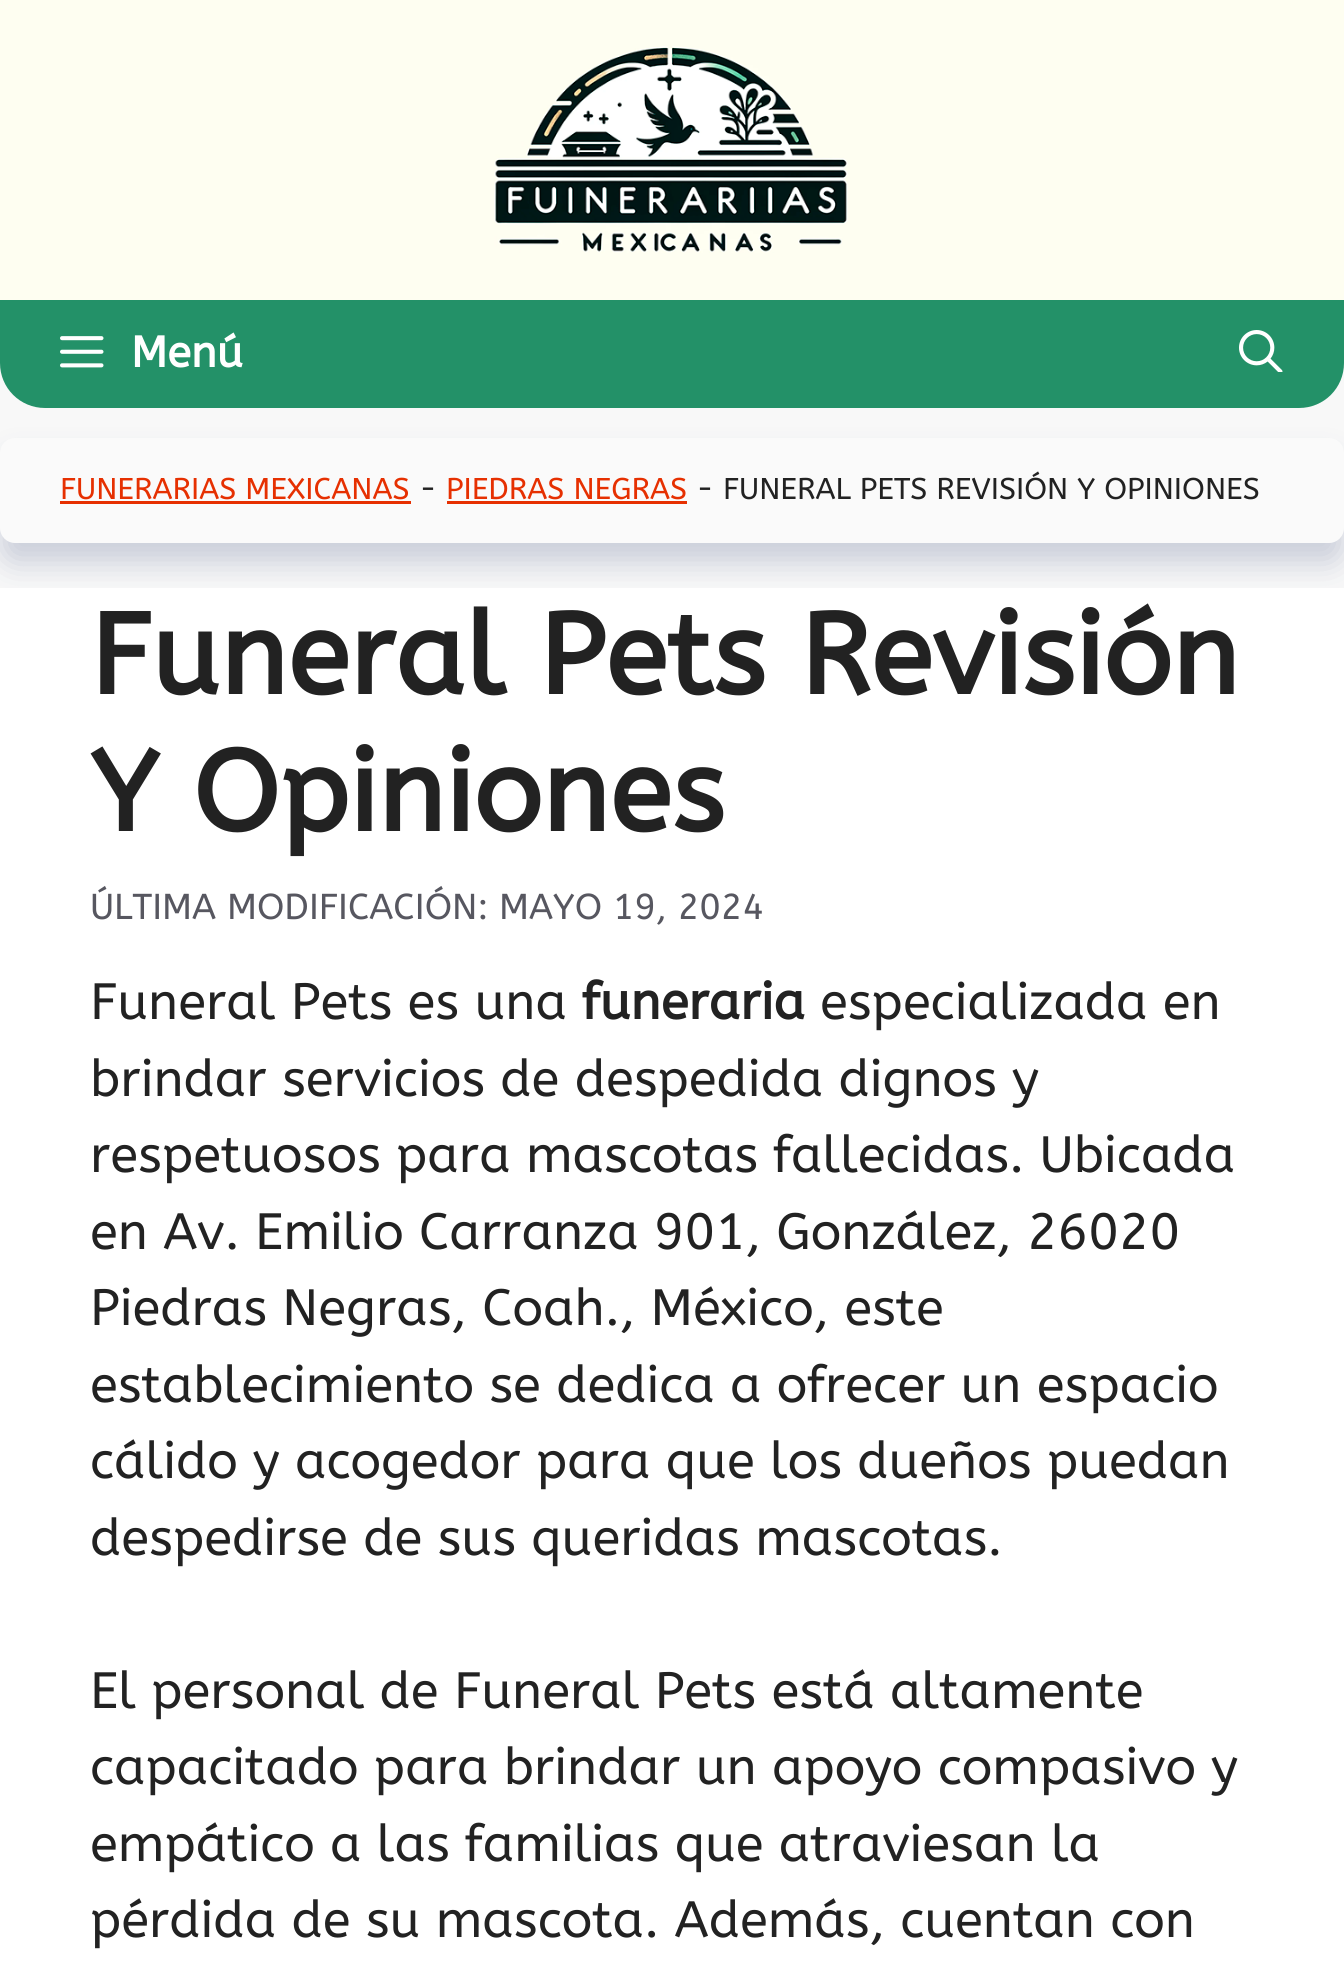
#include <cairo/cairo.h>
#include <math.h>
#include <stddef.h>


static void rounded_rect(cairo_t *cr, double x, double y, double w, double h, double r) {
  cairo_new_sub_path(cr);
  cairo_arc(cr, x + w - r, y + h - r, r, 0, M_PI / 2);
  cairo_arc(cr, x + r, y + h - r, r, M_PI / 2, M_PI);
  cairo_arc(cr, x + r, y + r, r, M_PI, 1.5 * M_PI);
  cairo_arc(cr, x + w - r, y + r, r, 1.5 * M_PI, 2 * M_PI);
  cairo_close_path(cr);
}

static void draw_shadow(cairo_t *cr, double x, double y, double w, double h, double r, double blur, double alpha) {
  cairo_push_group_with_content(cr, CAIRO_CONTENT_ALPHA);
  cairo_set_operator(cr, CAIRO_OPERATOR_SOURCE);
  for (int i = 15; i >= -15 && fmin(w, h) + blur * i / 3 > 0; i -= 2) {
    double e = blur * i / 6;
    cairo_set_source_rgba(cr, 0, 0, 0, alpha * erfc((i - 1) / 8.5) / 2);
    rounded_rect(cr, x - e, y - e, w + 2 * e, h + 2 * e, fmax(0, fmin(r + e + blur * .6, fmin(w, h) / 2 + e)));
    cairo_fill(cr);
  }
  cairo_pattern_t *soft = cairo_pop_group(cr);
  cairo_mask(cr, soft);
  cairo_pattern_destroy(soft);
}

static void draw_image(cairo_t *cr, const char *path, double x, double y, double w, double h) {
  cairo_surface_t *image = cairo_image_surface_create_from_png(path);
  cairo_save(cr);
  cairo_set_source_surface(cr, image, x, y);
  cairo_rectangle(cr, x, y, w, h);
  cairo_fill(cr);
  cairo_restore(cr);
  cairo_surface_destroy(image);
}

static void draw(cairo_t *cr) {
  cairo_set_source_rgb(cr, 248 / 255.0, 248 / 255.0, 248 / 255.0);
  cairo_paint(cr);
  cairo_set_source_rgb(cr, 254 / 255.0, 254 / 255.0, 241 / 255.0);
  cairo_rectangle(cr, 0, 0, 1344, 300);
  cairo_fill(cr);
  draw_image(cr, "images/1.png", 494, 46, 354, 207);
  cairo_set_source_rgb(cr, 35 / 255.0, 145 / 255.0, 104 / 255.0);
  cairo_new_path(cr);
  cairo_move_to(cr, 0, 300);
  cairo_line_to(cr, 1344, 300);
  cairo_line_to(cr, 1344, 363);
  cairo_curve_to(cr, 1344, 388, 1324, 408, 1299, 408);
  cairo_line_to(cr, 45, 408);
  cairo_curve_to(cr, 20, 408, 0, 388, 0, 363);
  cairo_close_path(cr);
  cairo_fill(cr);
  draw_image(cr, "images/2.png", 60, 336, 44, 32);
  draw_image(cr, "images/3.png", 1239, 330, 44, 42);
  cairo_set_source_rgb(cr, 23 / 255.0, 43 / 255.0, 99 / 255.0);
  draw_shadow(cr, 0, 459, 1344, 105, 15, 15, 0.2);
  cairo_set_source_rgb(cr, 250 / 255.0, 250 / 255.0, 250 / 255.0);
  rounded_rect(cr, 0, 438, 1344, 105, 15);
  cairo_fill(cr);
  cairo_set_source_rgb(cr, 230 / 255.0, 48 / 255.0, 1 / 255.0);
  cairo_rectangle(cr, 60, 501, 351, 3);
  cairo_fill(cr);
  cairo_rectangle(cr, 447, 501, 240, 3);
  cairo_fill(cr);
  cairo_set_source_rgb(cr, 1, 1, 1);
  cairo_rectangle(cr, 0, 588, 1344, 1386);
  cairo_fill(cr);
  cairo_select_font_face(cr, "ABeeZee", CAIRO_FONT_SLANT_NORMAL, CAIRO_FONT_WEIGHT_BOLD);
  cairo_set_font_size(cr, 43.5);
  cairo_move_to(cr, 131, 367);
  cairo_show_text(cr, "Menú");
  cairo_select_font_face(cr, "ABeeZee", CAIRO_FONT_SLANT_NORMAL, CAIRO_FONT_WEIGHT_NORMAL);
  cairo_set_font_size(cr, 30);
  cairo_set_source_rgb(cr, 230 / 255.0, 48 / 255.0, 1 / 255.0);
  cairo_move_to(cr, 60, 499);
  cairo_show_text(cr, "FUNERARIAS MEXICANAS");
  cairo_set_source_rgb(cr, 34 / 255.0, 34 / 255.0, 34 / 255.0);
  cairo_move_to(cr, 419, 499);
  cairo_show_text(cr, "-");
  cairo_set_source_rgb(cr, 230 / 255.0, 48 / 255.0, 1 / 255.0);
  cairo_move_to(cr, 446, 499);
  cairo_show_text(cr, "PIEDRAS NEGRAS");
  cairo_set_source_rgb(cr, 34 / 255.0, 34 / 255.0, 34 / 255.0);
  cairo_move_to(cr, 696, 499);
  cairo_show_text(cr, "- FUNERAL PETS REVISIÓN Y OPINIONES");
  cairo_select_font_face(cr, "ABeeZee", CAIRO_FONT_SLANT_NORMAL, CAIRO_FONT_WEIGHT_BOLD);
  cairo_set_font_size(cr, 114);
  cairo_move_to(cr, 90, 694);
  cairo_show_text(cr, "Funeral Pets Revisión");
  cairo_move_to(cr, 90, 831);
  cairo_show_text(cr, "Y Opiniones");
  cairo_select_font_face(cr, "ABeeZee", CAIRO_FONT_SLANT_NORMAL, CAIRO_FONT_WEIGHT_NORMAL);
  cairo_set_font_size(cr, 36);
  cairo_set_source_rgb(cr, 87 / 255.0, 87 / 255.0, 96 / 255.0);
  cairo_move_to(cr, 90, 919);
  cairo_show_text(cr, "ÚLTIMA MODIFICACIÓN: MAYO 19, 2024");
  cairo_set_font_size(cr, 51);
  cairo_set_source_rgb(cr, 34 / 255.0, 34 / 255.0, 34 / 255.0);
  cairo_move_to(cr, 90, 1019);
  cairo_show_text(cr, "Funeral Pets es una");
  cairo_select_font_face(cr, "ABeeZee", CAIRO_FONT_SLANT_NORMAL, CAIRO_FONT_WEIGHT_BOLD);
  cairo_move_to(cr, 582, 1019);
  cairo_show_text(cr, "funeraria");
  cairo_select_font_face(cr, "ABeeZee", CAIRO_FONT_SLANT_NORMAL, CAIRO_FONT_WEIGHT_NORMAL);
  cairo_move_to(cr, 820, 1019);
  cairo_show_text(cr, "especializada en");
  cairo_move_to(cr, 90, 1096);
  cairo_show_text(cr, "brindar servicios de despedida dignos y");
  cairo_move_to(cr, 90, 1172);
  cairo_show_text(cr, "respetuosos para mascotas fallecidas. Ubicada");
  cairo_move_to(cr, 90, 1249);
  cairo_show_text(cr, "en Av. Emilio Carranza 901, González, 26020");
  cairo_move_to(cr, 90, 1325);
  cairo_show_text(cr, "Piedras Negras, Coah., México, este");
  cairo_move_to(cr, 90, 1402);
  cairo_show_text(cr, "establecimiento se dedica a ofrecer un espacio");
  cairo_move_to(cr, 90, 1478);
  cairo_show_text(cr, "cálido y acogedor para que los dueños puedan");
  cairo_move_to(cr, 90, 1555);
  cairo_show_text(cr, "despedirse de sus queridas mascotas.");
  cairo_move_to(cr, 90, 1708);
  cairo_show_text(cr, "El personal de Funeral Pets está altamente");
  cairo_move_to(cr, 90, 1784);
  cairo_show_text(cr, "capacitado para brindar un apoyo compasivo y");
  cairo_move_to(cr, 90, 1861);
  cairo_show_text(cr, "empático a las familias que atraviesan la");
  cairo_move_to(cr, 90, 1937);
  cairo_show_text(cr, "pérdida de su mascota. Además, cuentan con");
}

int main(void) {
  cairo_surface_t *surface = cairo_image_surface_create(CAIRO_FORMAT_RGB24, 1344, 1974);
  cairo_t *cr = cairo_create(surface);
  cairo_font_options_t *options = cairo_font_options_create();
  cairo_font_options_set_hint_metrics(options, CAIRO_HINT_METRICS_OFF);
  cairo_font_options_set_hint_style(options, CAIRO_HINT_STYLE_NONE);
  cairo_set_font_options(cr, options);
  cairo_set_miter_limit(cr, 4);
  draw(cr);
  cairo_surface_write_to_png(surface, "out.png");
  cairo_font_options_destroy(options);
  cairo_destroy(cr);
  cairo_surface_destroy(surface);
  return 0;
}
